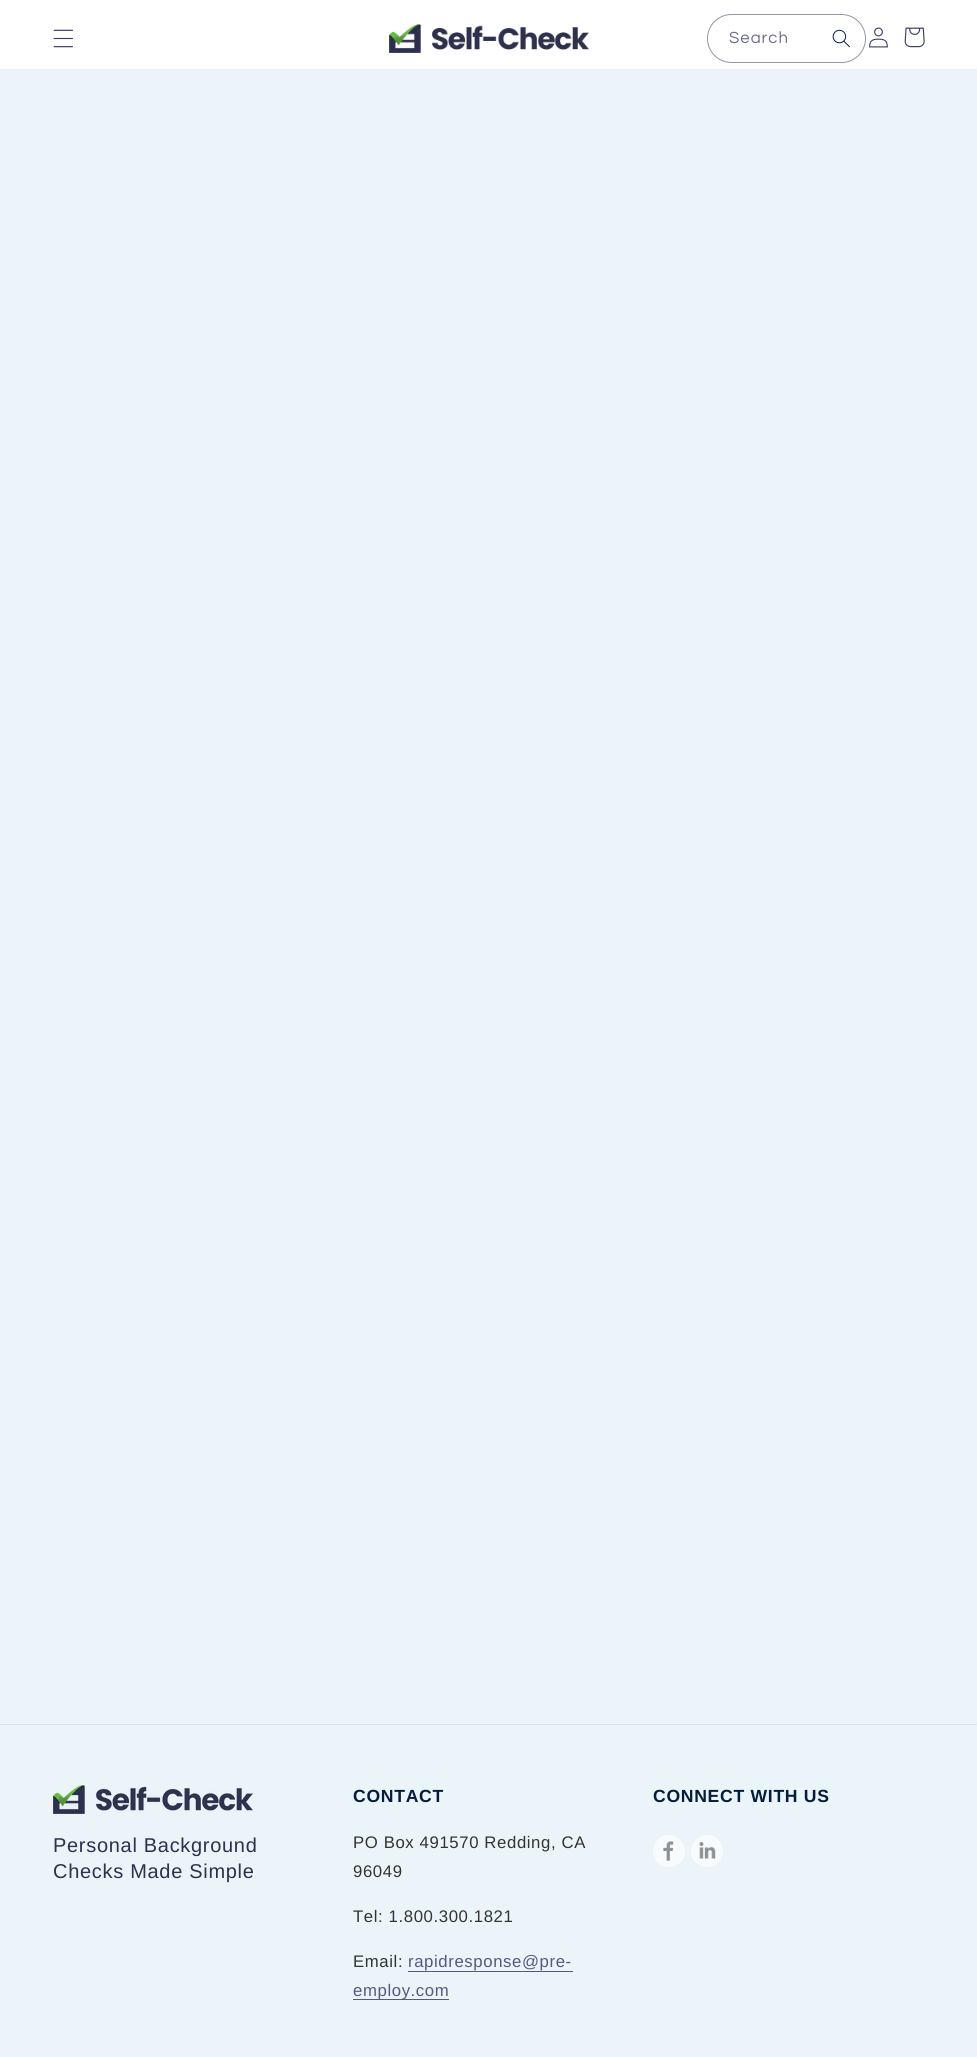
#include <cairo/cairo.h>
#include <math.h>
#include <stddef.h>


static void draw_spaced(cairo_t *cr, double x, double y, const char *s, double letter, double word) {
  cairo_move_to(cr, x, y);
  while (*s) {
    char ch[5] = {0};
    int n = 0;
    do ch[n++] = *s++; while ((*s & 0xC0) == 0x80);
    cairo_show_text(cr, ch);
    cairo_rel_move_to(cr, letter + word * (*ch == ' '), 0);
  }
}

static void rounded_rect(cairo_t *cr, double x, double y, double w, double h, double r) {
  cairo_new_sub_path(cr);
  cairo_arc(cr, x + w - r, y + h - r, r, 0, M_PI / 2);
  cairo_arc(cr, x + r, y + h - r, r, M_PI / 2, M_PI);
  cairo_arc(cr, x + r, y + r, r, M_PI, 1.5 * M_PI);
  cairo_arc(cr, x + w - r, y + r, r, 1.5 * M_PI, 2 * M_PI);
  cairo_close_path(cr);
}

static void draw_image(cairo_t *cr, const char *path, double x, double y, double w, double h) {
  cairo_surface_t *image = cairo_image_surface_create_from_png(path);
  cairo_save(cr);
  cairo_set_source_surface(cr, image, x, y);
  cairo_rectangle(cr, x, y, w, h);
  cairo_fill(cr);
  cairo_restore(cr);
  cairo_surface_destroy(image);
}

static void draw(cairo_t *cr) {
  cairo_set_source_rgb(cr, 235 / 255.0, 244 / 255.0, 249 / 255.0);
  cairo_paint(cr);
  cairo_set_source_rgb(cr, 1, 1, 1);
  cairo_rectangle(cr, 0, 0, 977, 69);
  cairo_fill(cr);
  cairo_set_source_rgb(cr, 239 / 255.0, 239 / 255.0, 243 / 255.0);
  cairo_rectangle(cr, 0, 69, 977, 1);
  cairo_fill(cr);
  draw_image(cr, "images/1.png", 53, 29, 20, 19);
  draw_image(cr, "images/2.png", 389, 24, 200, 29);
  draw_image(cr, "images/3.png", 832, 29, 18, 19);
  rounded_rect(cr, 707.5, 14.5, 158, 48, 24);
  cairo_set_source_rgb(cr, 148 / 255.0, 148 / 255.0, 174 / 255.0);
  cairo_set_line_width(cr, 1);
  cairo_stroke(cr);
  draw_image(cr, "images/4.png", 869, 27, 19, 21);
  draw_image(cr, "images/5.png", 904, 27, 21, 21);
  cairo_set_source_rgb(cr, 221 / 255.0, 229 / 255.0, 238 / 255.0);
  cairo_rectangle(cr, 0, 1724, 977, 1);
  cairo_fill(cr);
  cairo_set_source_rgb(cr, 87 / 255.0, 88 / 255.0, 128 / 255.0);
  cairo_rectangle(cr, 408, 1971, 165, 1);
  cairo_fill(cr);
  cairo_rectangle(cr, 353, 1999, 96, 1);
  cairo_fill(cr);
  cairo_set_source_rgb(cr, 247 / 255.0, 251 / 255.0, 253 / 255.0);
  cairo_arc(cr, 669, 1851, 16, 0, 2 * M_PI);
  cairo_fill(cr);
  draw_image(cr, "images/6.png", 663, 1841, 11, 20);
  cairo_arc(cr, 707, 1851, 16, 0, 2 * M_PI);
  cairo_fill(cr);
  draw_image(cr, "images/7.png", 699, 1842, 17, 17);
  draw_image(cr, "images/8.png", 53, 1785, 200, 29);
  cairo_select_font_face(cr, "Questrial", CAIRO_FONT_SLANT_NORMAL, CAIRO_FONT_WEIGHT_NORMAL);
  cairo_set_font_size(cr, 16.75);
  cairo_set_source_rgb(cr, 110 / 255.0, 110 / 255.0, 144 / 255.0);
  draw_spaced(cr, 729, 43, "Search", 1, 0);
  cairo_select_font_face(cr, "Liberation Sans", CAIRO_FONT_SLANT_NORMAL, CAIRO_FONT_WEIGHT_BOLD);
  cairo_set_font_size(cr, 17.6);
  cairo_set_source_rgb(cr, 6 / 255.0, 28 / 255.0, 61 / 255.0);
  draw_spaced(cr, 353, 1802, "CONTACT", 0.7, 0);
  cairo_select_font_face(cr, "Liberation Sans", CAIRO_FONT_SLANT_NORMAL, CAIRO_FONT_WEIGHT_NORMAL);
  cairo_set_font_size(cr, 16.75);
  cairo_set_source_rgb(cr, 51 / 255.0, 51 / 255.0, 51 / 255.0);
  draw_spaced(cr, 353, 1848, "PO Box 491570 Redding, CA", 0.6, 0);
  draw_spaced(cr, 353, 1877, "96049", 0.6, 0);
  draw_spaced(cr, 353, 1922, "Tel: 1.800.300.1821", 0.6, 0);
  draw_spaced(cr, 353, 1967, "Email:", 0.6, 0);
  cairo_set_source_rgb(cr, 87 / 255.0, 88 / 255.0, 128 / 255.0);
  draw_spaced(cr, 408, 1967, "rapidresponse@pre-", 0.6, 0);
  draw_spaced(cr, 353, 1996, "employ.com", 0.6, 0);
  cairo_select_font_face(cr, "Liberation Sans", CAIRO_FONT_SLANT_NORMAL, CAIRO_FONT_WEIGHT_BOLD);
  cairo_set_font_size(cr, 17.6);
  cairo_set_source_rgb(cr, 6 / 255.0, 28 / 255.0, 61 / 255.0);
  draw_spaced(cr, 653, 1802, "CONNECT WITH US", 0.7, 0);
  cairo_select_font_face(cr, "Liberation Sans", CAIRO_FONT_SLANT_NORMAL, CAIRO_FONT_WEIGHT_NORMAL);
  cairo_set_font_size(cr, 20);
  cairo_set_source_rgb(cr, 44 / 255.0, 49 / 255.0, 78 / 255.0);
  draw_spaced(cr, 53, 1852, "Personal Background", 0.7, 0);
  draw_spaced(cr, 53, 1878, "Checks Made Simple", 0.7, 0);
}

int main(void) {
  cairo_surface_t *surface = cairo_image_surface_create(CAIRO_FORMAT_RGB24, 977, 2057);
  cairo_t *cr = cairo_create(surface);
  cairo_font_options_t *options = cairo_font_options_create();
  cairo_font_options_set_hint_metrics(options, CAIRO_HINT_METRICS_OFF);
  cairo_font_options_set_hint_style(options, CAIRO_HINT_STYLE_NONE);
  cairo_set_font_options(cr, options);
  cairo_set_miter_limit(cr, 4);
  draw(cr);
  cairo_surface_write_to_png(surface, "out.png");
  cairo_font_options_destroy(options);
  cairo_destroy(cr);
  cairo_surface_destroy(surface);
  return 0;
}
